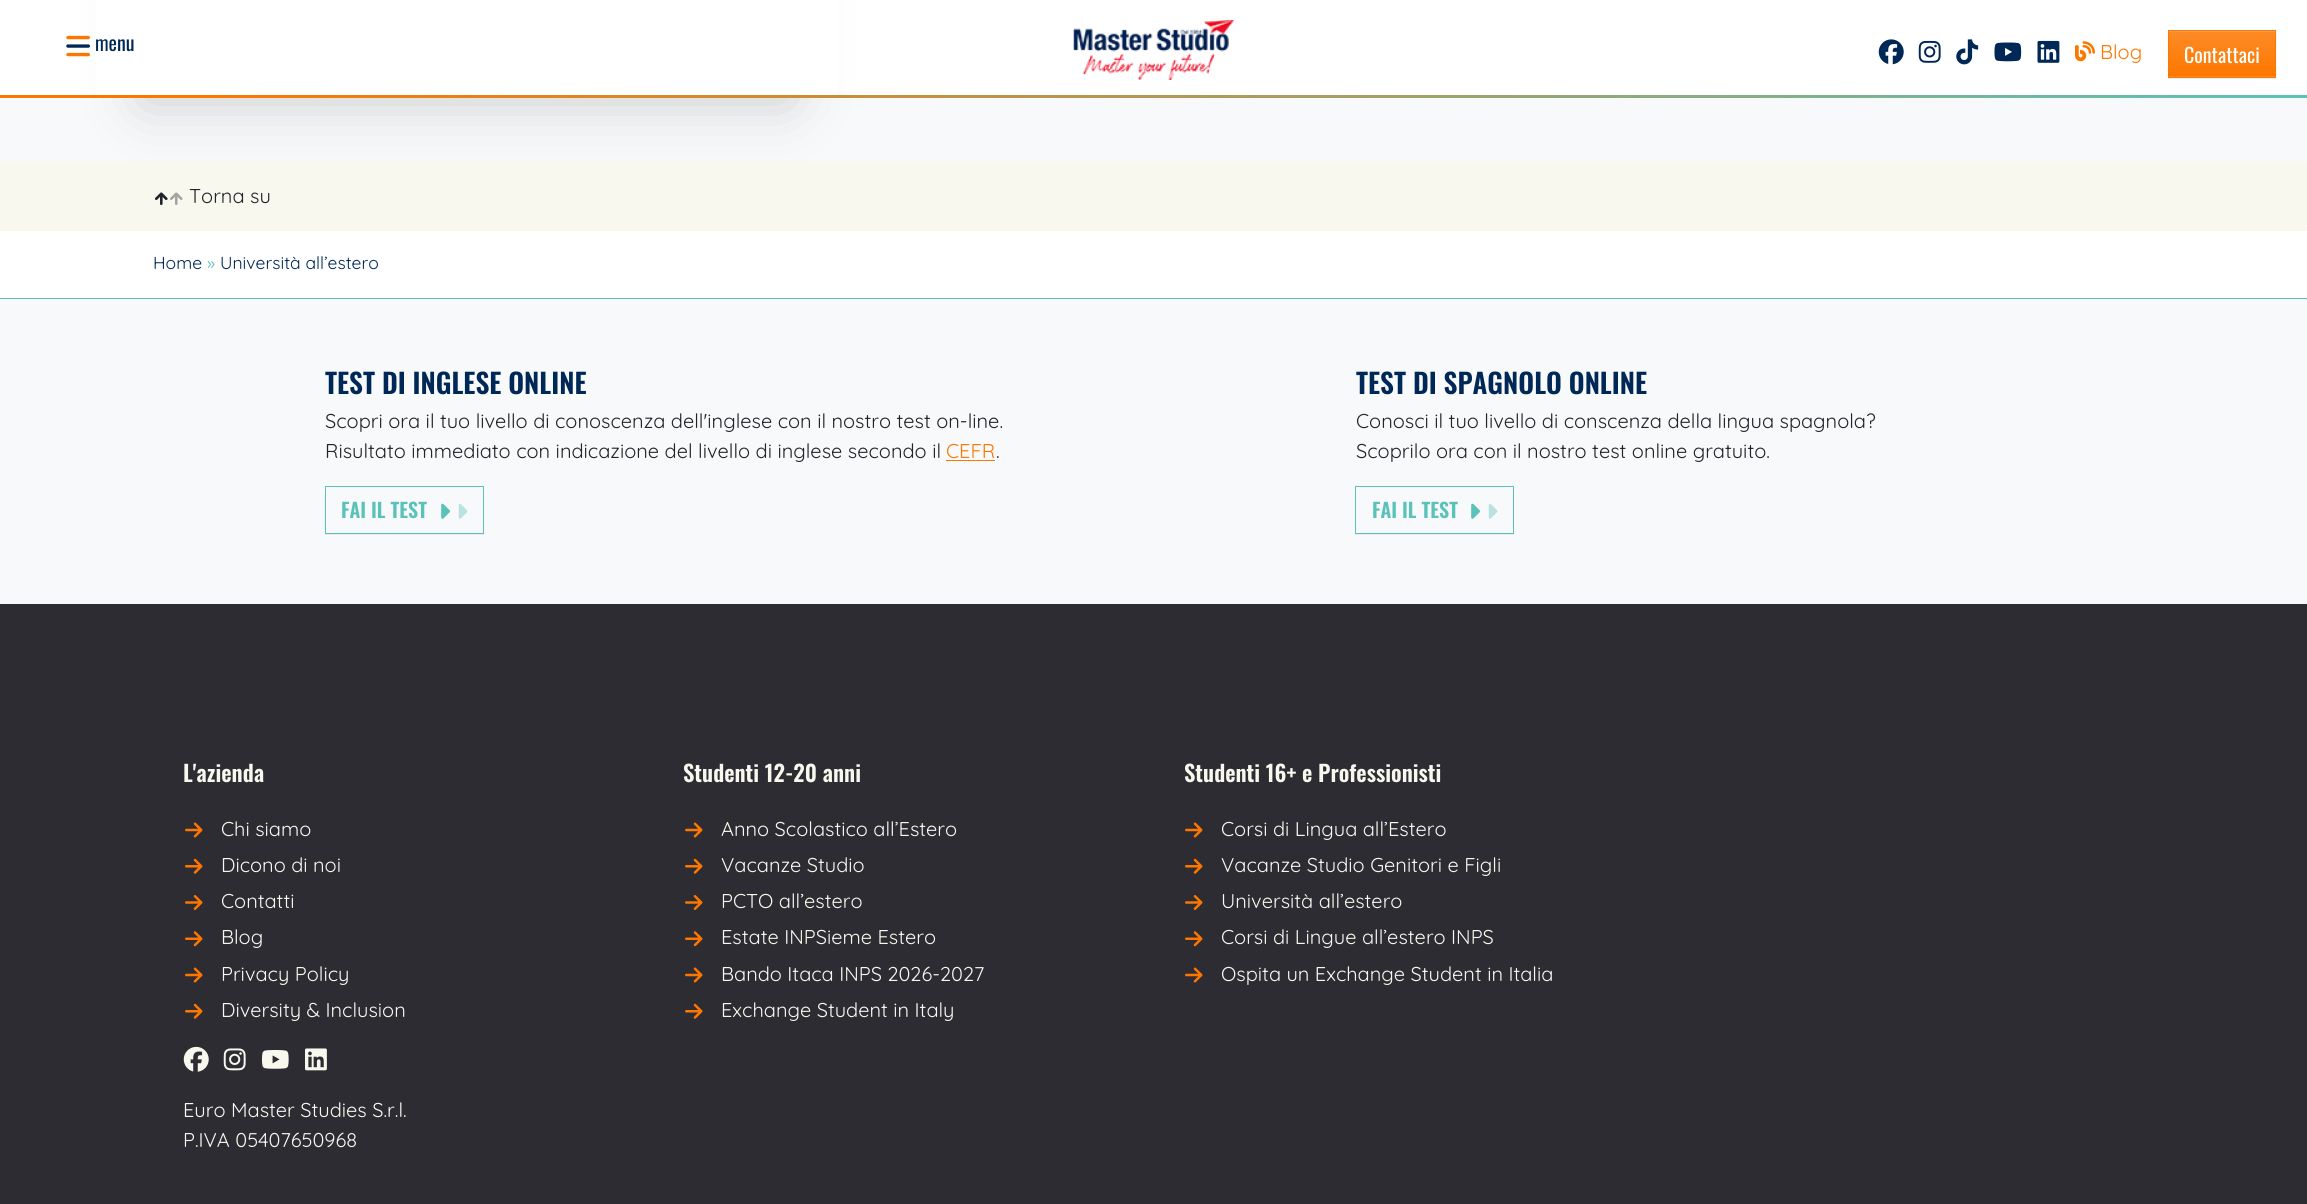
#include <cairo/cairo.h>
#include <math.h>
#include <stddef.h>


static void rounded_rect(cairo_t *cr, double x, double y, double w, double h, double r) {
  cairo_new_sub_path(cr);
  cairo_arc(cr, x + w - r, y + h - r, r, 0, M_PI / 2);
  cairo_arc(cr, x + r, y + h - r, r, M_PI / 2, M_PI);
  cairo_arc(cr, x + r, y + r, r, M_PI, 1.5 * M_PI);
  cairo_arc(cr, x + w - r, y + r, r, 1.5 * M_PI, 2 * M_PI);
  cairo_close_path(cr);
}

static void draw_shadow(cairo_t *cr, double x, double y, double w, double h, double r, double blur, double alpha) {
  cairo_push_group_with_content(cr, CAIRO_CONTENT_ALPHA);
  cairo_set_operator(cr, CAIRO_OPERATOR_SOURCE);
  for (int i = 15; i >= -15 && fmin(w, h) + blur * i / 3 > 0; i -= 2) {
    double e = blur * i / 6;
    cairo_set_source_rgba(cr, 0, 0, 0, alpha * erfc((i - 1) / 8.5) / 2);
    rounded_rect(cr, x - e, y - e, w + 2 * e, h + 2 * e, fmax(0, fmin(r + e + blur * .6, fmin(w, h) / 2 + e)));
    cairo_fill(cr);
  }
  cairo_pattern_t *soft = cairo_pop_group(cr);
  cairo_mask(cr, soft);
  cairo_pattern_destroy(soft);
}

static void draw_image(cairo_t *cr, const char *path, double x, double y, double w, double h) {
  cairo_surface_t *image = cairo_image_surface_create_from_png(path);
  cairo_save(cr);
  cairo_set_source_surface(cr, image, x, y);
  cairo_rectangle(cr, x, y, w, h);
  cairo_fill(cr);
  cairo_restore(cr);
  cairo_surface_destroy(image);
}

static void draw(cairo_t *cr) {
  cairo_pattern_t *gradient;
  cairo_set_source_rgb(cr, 1, 1, 1);
  cairo_paint(cr);
  cairo_set_source_rgb(cr, 248 / 255.0, 249 / 255.0, 250 / 255.0);
  cairo_rectangle(cr, 0, 98, 2307, 63);
  cairo_fill(cr);
  cairo_set_source_rgb(cr, 0, 0, 0);
  draw_shadow(cr, 144, -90, 646, 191, 0, 30, 0.18);
  cairo_set_source_rgb(cr, 1, 1, 1);
  cairo_rectangle(cr, 96, 0, 742, 95);
  cairo_fill(cr);
  draw_image(cr, "images/1.png", 66, 35, 24, 22);
  draw_image(cr, "images/2.png", 1073, 20, 161, 60);
  draw_image(cr, "images/3.png", 1878, 39, 26, 26);
  draw_image(cr, "images/4.png", 1918, 40, 23, 23);
  draw_image(cr, "images/5.png", 1956, 39, 23, 26);
  draw_image(cr, "images/6.png", 1994, 42, 28, 20);
  draw_image(cr, "images/7.png", 2037, 40, 23, 23);
  draw_image(cr, "images/8.png", 2075, 41, 20, 21);
  cairo_set_source_rgb(cr, 0, 0, 0);
  draw_shadow(cr, 2168, 31, 108, 48, 0, 0.5, 0.07);
  gradient = cairo_pattern_create_linear(2222, 31, 2222, 76);
  cairo_pattern_add_color_stop_rgba(gradient, 0, 253 / 255.0, 139 / 255.0, 38 / 255.0, 1);
  cairo_pattern_add_color_stop_rgba(gradient, 1, 253 / 255.0, 119 / 255.0, 0, 1);
  cairo_set_source(cr, gradient);
  cairo_pattern_destroy(gradient);
  cairo_rectangle(cr, 2169, 32, 106, 44);
  cairo_fill(cr);
  gradient = cairo_pattern_create_linear(2222, 76, 2222, 121);
  cairo_pattern_add_color_stop_rgba(gradient, 0, 253 / 255.0, 139 / 255.0, 38 / 255.0, 1);
  cairo_pattern_add_color_stop_rgba(gradient, 1, 253 / 255.0, 119 / 255.0, 0, 1);
  cairo_set_source(cr, gradient);
  cairo_pattern_destroy(gradient);
  cairo_rectangle(cr, 2168, 76, 108, 1);
  cairo_fill(cr);
  cairo_set_source_rgb(cr, 253 / 255.0, 156 / 255.0, 71 / 255.0);
  cairo_rectangle(cr, 2169, 31, 106, 1);
  cairo_fill(cr);
  cairo_rectangle(cr, 2168.5, 30.5, 107, 47);
  cairo_set_source_rgb(cr, 253 / 255.0, 119 / 255.0, 0);
  cairo_set_line_width(cr, 1);
  cairo_stroke(cr);
  gradient = cairo_pattern_create_linear(161, -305, 2146, 497);
  cairo_pattern_add_color_stop_rgba(gradient, 0.09, 253 / 255.0, 119 / 255.0, 0, 1);
  cairo_pattern_add_color_stop_rgba(gradient, 1, 90 / 255.0, 194 / 255.0, 184 / 255.0, 1);
  cairo_set_source(cr, gradient);
  cairo_pattern_destroy(gradient);
  cairo_rectangle(cr, 0, 95, 2307, 3);
  cairo_fill(cr);
  cairo_set_source_rgb(cr, 248 / 255.0, 248 / 255.0, 239 / 255.0);
  cairo_rectangle(cr, 0, 161, 2307, 70);
  cairo_fill(cr);
  draw_image(cr, "images/9.png", 155, 192, 13, 13);
  draw_image(cr, "images/10.png", 155, 192, 28, 13);
  cairo_set_source_rgb(cr, 248 / 255.0, 249 / 255.0, 250 / 255.0);
  cairo_rectangle(cr, 0, 299, 2307, 305);
  cairo_fill(cr);
  cairo_set_source_rgb(cr, 90 / 255.0, 194 / 255.0, 184 / 255.0);
  cairo_rectangle(cr, 0, 298, 2307, 1);
  cairo_fill(cr);
  cairo_set_source_rgb(cr, 253 / 255.0, 119 / 255.0, 0);
  cairo_rectangle(cr, 946, 460, 49, 1);
  cairo_fill(cr);
  cairo_save(cr);
  cairo_rectangle(cr, 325, 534, 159, 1);
  cairo_clip(cr);
  cairo_set_source_rgb(cr, 0, 0, 0);
  draw_shadow(cr, 325, 488, 159, 47, 0, 0.5, 0.07);
  cairo_restore(cr);
  cairo_rectangle(cr, 325.5, 486.5, 158, 47);
  cairo_set_source_rgb(cr, 90 / 255.0, 194 / 255.0, 184 / 255.0);
  cairo_stroke(cr);
  draw_image(cr, "images/11.png", 441, 503, 9, 16);
  draw_image(cr, "images/12.png", 441, 503, 27, 16);
  cairo_save(cr);
  cairo_rectangle(cr, 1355, 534, 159, 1);
  cairo_clip(cr);
  cairo_set_source_rgb(cr, 0, 0, 0);
  draw_shadow(cr, 1355, 488, 159, 47, 0, 0.5, 0.07);
  cairo_restore(cr);
  cairo_rectangle(cr, 1355.5, 486.5, 158, 47);
  cairo_stroke(cr);
  draw_image(cr, "images/11.png", 1471, 503, 9, 16);
  draw_image(cr, "images/12.png", 1471, 503, 27, 16);
  cairo_set_source_rgb(cr, 44 / 255.0, 44 / 255.0, 50 / 255.0);
  cairo_rectangle(cr, 0, 604, 2307, 600);
  cairo_fill(cr);
  draw_image(cr, "images/13.png", 185, 822, 18, 16);
  draw_image(cr, "images/14.png", 185, 858, 18, 16);
  draw_image(cr, "images/15.png", 185, 895, 18, 15);
  draw_image(cr, "images/16.png", 185, 931, 18, 16);
  draw_image(cr, "images/13.png", 185, 967, 18, 16);
  draw_image(cr, "images/14.png", 185, 1003, 18, 16);
  draw_image(cr, "images/17.png", 183, 1046, 26, 26);
  draw_image(cr, "images/18.png", 223, 1048, 23, 23);
  draw_image(cr, "images/19.png", 262, 1050, 27, 19);
  draw_image(cr, "images/20.png", 305, 1048, 22, 23);
  draw_image(cr, "images/13.png", 685, 822, 18, 16);
  draw_image(cr, "images/14.png", 685, 858, 18, 16);
  draw_image(cr, "images/15.png", 685, 895, 18, 15);
  draw_image(cr, "images/16.png", 685, 931, 18, 16);
  draw_image(cr, "images/13.png", 685, 967, 18, 16);
  draw_image(cr, "images/14.png", 685, 1003, 18, 16);
  draw_image(cr, "images/13.png", 1185, 822, 18, 16);
  draw_image(cr, "images/14.png", 1185, 858, 18, 16);
  draw_image(cr, "images/15.png", 1185, 895, 18, 15);
  draw_image(cr, "images/16.png", 1185, 931, 18, 16);
  draw_image(cr, "images/13.png", 1185, 967, 18, 16);
  cairo_select_font_face(cr, "Oswald", CAIRO_FONT_SLANT_NORMAL, CAIRO_FONT_WEIGHT_NORMAL);
  cairo_set_font_size(cr, 20);
  cairo_set_source_rgb(cr, 0, 40 / 255.0, 87 / 255.0);
  cairo_move_to(cr, 95, 51);
  cairo_show_text(cr, "menu");
  cairo_select_font_face(cr, "Quicksand Light", CAIRO_FONT_SLANT_NORMAL, CAIRO_FONT_WEIGHT_NORMAL);
  cairo_set_source_rgb(cr, 253 / 255.0, 119 / 255.0, 0);
  cairo_move_to(cr, 2100, 59);
  cairo_show_text(cr, "Blog");
  cairo_select_font_face(cr, "Oswald", CAIRO_FONT_SLANT_NORMAL, CAIRO_FONT_WEIGHT_NORMAL);
  cairo_set_source_rgb(cr, 1, 1, 1);
  cairo_move_to(cr, 2184, 63);
  cairo_show_text(cr, "Contattaci");
  cairo_select_font_face(cr, "Quicksand Light", CAIRO_FONT_SLANT_NORMAL, CAIRO_FONT_WEIGHT_NORMAL);
  cairo_set_source_rgb(cr, 33 / 255.0, 37 / 255.0, 41 / 255.0);
  cairo_move_to(cr, 189, 203);
  cairo_show_text(cr, "Torna su");
  cairo_set_font_size(cr, 17.5);
  cairo_set_source_rgb(cr, 0, 40 / 255.0, 87 / 255.0);
  cairo_move_to(cr, 153, 269);
  cairo_show_text(cr, "Home");
  cairo_set_source_rgb(cr, 90 / 255.0, 194 / 255.0, 184 / 255.0);
  cairo_move_to(cr, 207, 269);
  cairo_show_text(cr, "»");
  cairo_set_source_rgb(cr, 0, 40 / 255.0, 87 / 255.0);
  cairo_move_to(cr, 220, 269);
  cairo_show_text(cr, "Università all’estero");
  cairo_select_font_face(cr, "Oswald SemiBold", CAIRO_FONT_SLANT_NORMAL, CAIRO_FONT_WEIGHT_NORMAL);
  cairo_set_font_size(cr, 27.5);
  cairo_move_to(cr, 325, 394);
  cairo_show_text(cr, "TEST DI INGLESE ONLINE");
  cairo_select_font_face(cr, "Quicksand Light", CAIRO_FONT_SLANT_NORMAL, CAIRO_FONT_WEIGHT_NORMAL);
  cairo_set_font_size(cr, 20);
  cairo_set_source_rgb(cr, 33 / 255.0, 37 / 255.0, 41 / 255.0);
  cairo_move_to(cr, 325, 428);
  cairo_show_text(cr, "Scopri ora il tuo livello di conoscenza dell'inglese con il nostro test on-line.");
  cairo_move_to(cr, 325, 458);
  cairo_show_text(cr, "Risultato immediato con indicazione del livello di inglese secondo il");
  cairo_set_source_rgb(cr, 253 / 255.0, 119 / 255.0, 0);
  cairo_move_to(cr, 946, 458);
  cairo_show_text(cr, "CEFR");
  cairo_set_source_rgb(cr, 33 / 255.0, 37 / 255.0, 41 / 255.0);
  cairo_move_to(cr, 996, 458);
  cairo_show_text(cr, ".");
  cairo_select_font_face(cr, "Oswald SemiBold", CAIRO_FONT_SLANT_NORMAL, CAIRO_FONT_WEIGHT_NORMAL);
  cairo_set_source_rgb(cr, 90 / 255.0, 194 / 255.0, 184 / 255.0);
  cairo_move_to(cr, 341, 518);
  cairo_show_text(cr, "FAI IL TEST");
  cairo_set_font_size(cr, 27.5);
  cairo_set_source_rgb(cr, 0, 40 / 255.0, 87 / 255.0);
  cairo_move_to(cr, 1356, 394);
  cairo_show_text(cr, "TEST DI SPAGNOLO ONLINE");
  cairo_select_font_face(cr, "Quicksand Light", CAIRO_FONT_SLANT_NORMAL, CAIRO_FONT_WEIGHT_NORMAL);
  cairo_set_font_size(cr, 20);
  cairo_set_source_rgb(cr, 33 / 255.0, 37 / 255.0, 41 / 255.0);
  cairo_move_to(cr, 1356, 428);
  cairo_show_text(cr, "Conosci il tuo livello di conscenza della lingua spagnola?");
  cairo_move_to(cr, 1356, 458);
  cairo_show_text(cr, "Scoprilo ora con il nostro test online gratuito.");
  cairo_select_font_face(cr, "Oswald SemiBold", CAIRO_FONT_SLANT_NORMAL, CAIRO_FONT_WEIGHT_NORMAL);
  cairo_set_source_rgb(cr, 90 / 255.0, 194 / 255.0, 184 / 255.0);
  cairo_move_to(cr, 1372, 518);
  cairo_show_text(cr, "FAI IL TEST");
  cairo_set_font_size(cr, 22.5);
  cairo_set_source_rgb(cr, 248 / 255.0, 248 / 255.0, 239 / 255.0);
  cairo_move_to(cr, 183, 782);
  cairo_show_text(cr, "L'azienda");
  cairo_select_font_face(cr, "Quicksand Light", CAIRO_FONT_SLANT_NORMAL, CAIRO_FONT_WEIGHT_NORMAL);
  cairo_set_font_size(cr, 20);
  cairo_move_to(cr, 221, 836);
  cairo_show_text(cr, "Chi siamo");
  cairo_move_to(cr, 221, 872);
  cairo_show_text(cr, "Dicono di noi");
  cairo_move_to(cr, 221, 908);
  cairo_show_text(cr, "Contatti");
  cairo_move_to(cr, 221, 944);
  cairo_show_text(cr, "Blog");
  cairo_move_to(cr, 221, 981);
  cairo_show_text(cr, "Privacy Policy");
  cairo_move_to(cr, 221, 1017);
  cairo_show_text(cr, "Diversity & Inclusion");
  cairo_move_to(cr, 183, 1117);
  cairo_show_text(cr, "Euro Master Studies S.r.l.");
  cairo_move_to(cr, 183, 1147);
  cairo_show_text(cr, "P.IVA 05407650968");
  cairo_select_font_face(cr, "Oswald SemiBold", CAIRO_FONT_SLANT_NORMAL, CAIRO_FONT_WEIGHT_NORMAL);
  cairo_set_font_size(cr, 22.5);
  cairo_move_to(cr, 683, 782);
  cairo_show_text(cr, "Studenti 12-20 anni");
  cairo_select_font_face(cr, "Quicksand Light", CAIRO_FONT_SLANT_NORMAL, CAIRO_FONT_WEIGHT_NORMAL);
  cairo_set_font_size(cr, 20);
  cairo_move_to(cr, 721, 836);
  cairo_show_text(cr, "Anno Scolastico all’Estero");
  cairo_move_to(cr, 721, 872);
  cairo_show_text(cr, "Vacanze Studio");
  cairo_move_to(cr, 721, 908);
  cairo_show_text(cr, "PCTO all’estero");
  cairo_move_to(cr, 721, 944);
  cairo_show_text(cr, "Estate INPSieme Estero");
  cairo_move_to(cr, 721, 981);
  cairo_show_text(cr, "Bando Itaca INPS 2026-2027");
  cairo_move_to(cr, 721, 1017);
  cairo_show_text(cr, "Exchange Student in Italy");
  cairo_select_font_face(cr, "Oswald SemiBold", CAIRO_FONT_SLANT_NORMAL, CAIRO_FONT_WEIGHT_NORMAL);
  cairo_set_font_size(cr, 22.5);
  cairo_move_to(cr, 1184, 782);
  cairo_show_text(cr, "Studenti 16+ e Professionisti");
  cairo_select_font_face(cr, "Quicksand Light", CAIRO_FONT_SLANT_NORMAL, CAIRO_FONT_WEIGHT_NORMAL);
  cairo_set_font_size(cr, 20);
  cairo_move_to(cr, 1221, 836);
  cairo_show_text(cr, "Corsi di Lingua all’Estero");
  cairo_move_to(cr, 1221, 872);
  cairo_show_text(cr, "Vacanze Studio Genitori e Figli");
  cairo_move_to(cr, 1221, 908);
  cairo_show_text(cr, "Università all’estero");
  cairo_move_to(cr, 1221, 944);
  cairo_show_text(cr, "Corsi di Lingue all’estero INPS");
  cairo_move_to(cr, 1221, 981);
  cairo_show_text(cr, "Ospita un Exchange Student in Italia");
}

int main(void) {
  cairo_surface_t *surface = cairo_image_surface_create(CAIRO_FORMAT_RGB24, 2307, 1204);
  cairo_t *cr = cairo_create(surface);
  cairo_font_options_t *options = cairo_font_options_create();
  cairo_font_options_set_hint_metrics(options, CAIRO_HINT_METRICS_OFF);
  cairo_font_options_set_hint_style(options, CAIRO_HINT_STYLE_NONE);
  cairo_set_font_options(cr, options);
  cairo_set_miter_limit(cr, 4);
  draw(cr);
  cairo_surface_write_to_png(surface, "out.png");
  cairo_font_options_destroy(options);
  cairo_destroy(cr);
  cairo_surface_destroy(surface);
  return 0;
}
